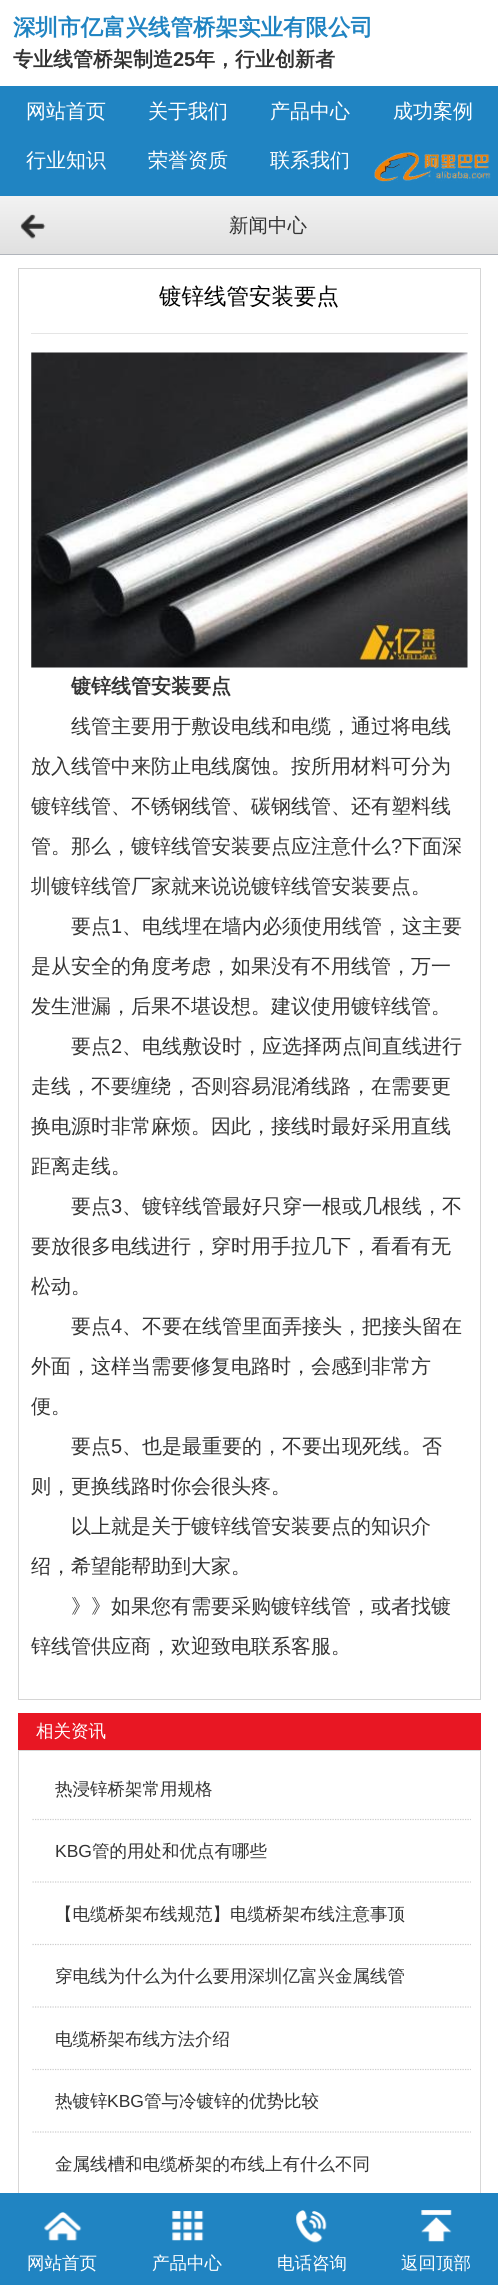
#include <cairo/cairo.h>
#include <math.h>
#include <stddef.h>


static void draw_image(cairo_t *cr, const char *path, double x, double y, double w, double h) {
  cairo_surface_t *image = cairo_image_surface_create_from_png(path);
  cairo_save(cr);
  cairo_set_source_surface(cr, image, x, y);
  cairo_rectangle(cr, x, y, w, h);
  cairo_fill(cr);
  cairo_restore(cr);
  cairo_surface_destroy(image);
}

static void draw(cairo_t *cr) {
  cairo_pattern_t *gradient;
  cairo_set_source_rgb(cr, 1, 1, 1);
  cairo_paint(cr);
  cairo_set_source_rgb(cr, 32 / 255.0, 132 / 255.0, 194 / 255.0);
  cairo_rectangle(cr, 0, 86, 498, 110);
  cairo_fill(cr);
  draw_image(cr, "images/1.png", 374, 152, 117, 30);
  gradient = cairo_pattern_create_linear(249, 196, 249, 254);
  cairo_pattern_add_color_stop_rgba(gradient, 0, 242 / 255.0, 242 / 255.0, 242 / 255.0, 1);
  cairo_pattern_add_color_stop_rgba(gradient, 1, 224 / 255.0, 224 / 255.0, 224 / 255.0, 1);
  cairo_set_source(cr, gradient);
  cairo_pattern_destroy(gradient);
  cairo_rectangle(cr, 0, 196, 498, 58);
  cairo_fill(cr);
  cairo_set_source_rgb(cr, 176 / 255.0, 180 / 255.0, 187 / 255.0);
  cairo_rectangle(cr, 0, 254, 498, 1);
  cairo_fill(cr);
  draw_image(cr, "images/2.png", 20, 214, 26, 25);
  cairo_rectangle(cr, 18.5, 268.5, 462, 1431);
  cairo_set_source_rgb(cr, 213 / 255.0, 213 / 255.0, 213 / 255.0);
  cairo_set_line_width(cr, 1);
  cairo_stroke(cr);
  cairo_set_source_rgb(cr, 229 / 255.0, 229 / 255.0, 229 / 255.0);
  cairo_rectangle(cr, 31, 333, 437, 1);
  cairo_fill(cr);
  draw_image(cr, "images/3.png", 31, 352, 437, 316);
  cairo_set_source_rgb(cr, 232 / 255.0, 23 / 255.0, 35 / 255.0);
  cairo_rectangle(cr, 18, 1713, 463, 37);
  cairo_fill(cr);
  cairo_rectangle(cr, 18.5, 1750.5, 462, 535);
  cairo_set_source_rgb(cr, 215 / 255.0, 215 / 255.0, 215 / 255.0);
  cairo_stroke(cr);
  cairo_new_path(cr);
  cairo_move_to(cr, 32.5, 1819.5);
  cairo_line_to(cr, 471, 1819.5);
  cairo_set_source_rgb(cr, 204 / 255.0, 204 / 255.0, 204 / 255.0);
  cairo_set_line_width(cr, 1.2);
  cairo_set_dash(cr, (double[]){1.25, 1.25}, 2, 0);
  cairo_stroke(cr);
  cairo_new_path(cr);
  cairo_move_to(cr, 32.5, 1882);
  cairo_line_to(cr, 471, 1882);
  cairo_stroke(cr);
  cairo_new_path(cr);
  cairo_move_to(cr, 32.5, 1944.5);
  cairo_line_to(cr, 471, 1944.5);
  cairo_stroke(cr);
  cairo_new_path(cr);
  cairo_move_to(cr, 32.5, 2007);
  cairo_line_to(cr, 471, 2007);
  cairo_stroke(cr);
  cairo_new_path(cr);
  cairo_move_to(cr, 32.5, 2069.5);
  cairo_line_to(cr, 471, 2069.5);
  cairo_stroke(cr);
  cairo_new_path(cr);
  cairo_move_to(cr, 32.5, 2132);
  cairo_line_to(cr, 471, 2132);
  cairo_stroke(cr);
  cairo_set_source_rgb(cr, 32 / 255.0, 132 / 255.0, 194 / 255.0);
  cairo_rectangle(cr, 0, 2193, 498, 92);
  cairo_fill(cr);
  draw_image(cr, "images/4.png", 44, 2212, 38, 29);
  draw_image(cr, "images/5.png", 172, 2211, 32, 30);
  draw_image(cr, "images/6.png", 296, 2210, 31, 33);
  draw_image(cr, "images/7.png", 421, 2210, 31, 32);
  cairo_select_font_face(cr, "WenQuanYi Zen Hei", CAIRO_FONT_SLANT_NORMAL, CAIRO_FONT_WEIGHT_BOLD);
  cairo_set_font_size(cr, 22.5);
  cairo_move_to(cr, 13, 35);
  cairo_show_text(cr, "深圳市亿富兴线管桥架实业有限公司");
  cairo_set_font_size(cr, 20);
  cairo_set_source_rgb(cr, 51 / 255.0, 51 / 255.0, 51 / 255.0);
  cairo_move_to(cr, 13, 66);
  cairo_show_text(cr, "专业线管桥架制造");
  cairo_select_font_face(cr, "Liberation Sans", CAIRO_FONT_SLANT_NORMAL, CAIRO_FONT_WEIGHT_BOLD);
  cairo_move_to(cr, 173, 66);
  cairo_show_text(cr, "25");
  cairo_select_font_face(cr, "WenQuanYi Zen Hei", CAIRO_FONT_SLANT_NORMAL, CAIRO_FONT_WEIGHT_BOLD);
  cairo_move_to(cr, 195, 66);
  cairo_show_text(cr, "年，行业创新者");
  cairo_select_font_face(cr, "WenQuanYi Zen Hei Medium", CAIRO_FONT_SLANT_NORMAL, CAIRO_FONT_WEIGHT_NORMAL);
  cairo_set_source_rgb(cr, 1, 1, 1);
  cairo_move_to(cr, 26, 118);
  cairo_show_text(cr, "网站首页");
  cairo_move_to(cr, 148, 118);
  cairo_show_text(cr, "关于我们");
  cairo_move_to(cr, 270, 118);
  cairo_show_text(cr, "产品中心");
  cairo_move_to(cr, 393, 118);
  cairo_show_text(cr, "成功案例");
  cairo_move_to(cr, 26, 167);
  cairo_show_text(cr, "行业知识");
  cairo_move_to(cr, 148, 167);
  cairo_show_text(cr, "荣誉资质");
  cairo_move_to(cr, 270, 167);
  cairo_show_text(cr, "联系我们");
  cairo_set_font_size(cr, 19.5);
  cairo_set_source_rgb(cr, 51 / 255.0, 51 / 255.0, 51 / 255.0);
  cairo_move_to(cr, 229, 232);
  cairo_show_text(cr, "新闻中心");
  cairo_set_font_size(cr, 22.5);
  cairo_set_source_rgb(cr, 0, 0, 0);
  cairo_move_to(cr, 159, 304);
  cairo_show_text(cr, "镀锌线管安装要点");
  cairo_select_font_face(cr, "WenQuanYi Zen Hei", CAIRO_FONT_SLANT_NORMAL, CAIRO_FONT_WEIGHT_BOLD);
  cairo_set_font_size(cr, 20);
  cairo_set_source_rgb(cr, 51 / 255.0, 51 / 255.0, 51 / 255.0);
  cairo_move_to(cr, 71, 693);
  cairo_show_text(cr, "镀锌线管安装要点");
  cairo_select_font_face(cr, "WenQuanYi Zen Hei Medium", CAIRO_FONT_SLANT_NORMAL, CAIRO_FONT_WEIGHT_NORMAL);
  cairo_move_to(cr, 71, 733);
  cairo_show_text(cr, "线管主要用于敷设电线和电缆，通过将电线");
  cairo_move_to(cr, 31, 773);
  cairo_show_text(cr, "放入线管中来防止电线腐蚀。按所用材料可分为");
  cairo_move_to(cr, 31, 813);
  cairo_show_text(cr, "镀锌线管、不锈钢线管、碳钢线管、还有塑料线");
  cairo_move_to(cr, 31, 853);
  cairo_show_text(cr, "管。那么，镀锌线管安装要点应注意什么");
  cairo_select_font_face(cr, "Liberation Sans", CAIRO_FONT_SLANT_NORMAL, CAIRO_FONT_WEIGHT_NORMAL);
  cairo_move_to(cr, 391, 853);
  cairo_show_text(cr, "?");
  cairo_select_font_face(cr, "WenQuanYi Zen Hei Medium", CAIRO_FONT_SLANT_NORMAL, CAIRO_FONT_WEIGHT_NORMAL);
  cairo_move_to(cr, 402, 853);
  cairo_show_text(cr, "下面深");
  cairo_move_to(cr, 31, 893);
  cairo_show_text(cr, "圳镀锌线管厂家就来说说镀锌线管安装要点。");
  cairo_move_to(cr, 71, 933);
  cairo_show_text(cr, "要点");
  cairo_select_font_face(cr, "Liberation Sans", CAIRO_FONT_SLANT_NORMAL, CAIRO_FONT_WEIGHT_NORMAL);
  cairo_move_to(cr, 111, 933);
  cairo_show_text(cr, "1");
  cairo_select_font_face(cr, "WenQuanYi Zen Hei Medium", CAIRO_FONT_SLANT_NORMAL, CAIRO_FONT_WEIGHT_NORMAL);
  cairo_move_to(cr, 122, 933);
  cairo_show_text(cr, "、电线埋在墙内必须使用线管，这主要");
  cairo_move_to(cr, 31, 973);
  cairo_show_text(cr, "是从安全的角度考虑，如果没有不用线管，万一");
  cairo_move_to(cr, 31, 1013);
  cairo_show_text(cr, "发生泄漏，后果不堪设想。建议使用镀锌线管。");
  cairo_move_to(cr, 71, 1053);
  cairo_show_text(cr, "要点");
  cairo_select_font_face(cr, "Liberation Sans", CAIRO_FONT_SLANT_NORMAL, CAIRO_FONT_WEIGHT_NORMAL);
  cairo_move_to(cr, 111, 1053);
  cairo_show_text(cr, "2");
  cairo_select_font_face(cr, "WenQuanYi Zen Hei Medium", CAIRO_FONT_SLANT_NORMAL, CAIRO_FONT_WEIGHT_NORMAL);
  cairo_move_to(cr, 122, 1053);
  cairo_show_text(cr, "、电线敷设时，应选择两点间直线进行");
  cairo_move_to(cr, 31, 1093);
  cairo_show_text(cr, "走线，不要缠绕，否则容易混淆线路，在需要更");
  cairo_move_to(cr, 31, 1133);
  cairo_show_text(cr, "换电源时非常麻烦。因此，接线时最好采用直线");
  cairo_move_to(cr, 31, 1173);
  cairo_show_text(cr, "距离走线。");
  cairo_move_to(cr, 71, 1213);
  cairo_show_text(cr, "要点");
  cairo_select_font_face(cr, "Liberation Sans", CAIRO_FONT_SLANT_NORMAL, CAIRO_FONT_WEIGHT_NORMAL);
  cairo_move_to(cr, 111, 1213);
  cairo_show_text(cr, "3");
  cairo_select_font_face(cr, "WenQuanYi Zen Hei Medium", CAIRO_FONT_SLANT_NORMAL, CAIRO_FONT_WEIGHT_NORMAL);
  cairo_move_to(cr, 122, 1213);
  cairo_show_text(cr, "、镀锌线管最好只穿一根或几根线，不");
  cairo_move_to(cr, 31, 1253);
  cairo_show_text(cr, "要放很多电线进行，穿时用手拉几下，看看有无");
  cairo_move_to(cr, 31, 1293);
  cairo_show_text(cr, "松动。");
  cairo_move_to(cr, 71, 1333);
  cairo_show_text(cr, "要点");
  cairo_select_font_face(cr, "Liberation Sans", CAIRO_FONT_SLANT_NORMAL, CAIRO_FONT_WEIGHT_NORMAL);
  cairo_move_to(cr, 111, 1333);
  cairo_show_text(cr, "4");
  cairo_select_font_face(cr, "WenQuanYi Zen Hei Medium", CAIRO_FONT_SLANT_NORMAL, CAIRO_FONT_WEIGHT_NORMAL);
  cairo_move_to(cr, 122, 1333);
  cairo_show_text(cr, "、不要在线管里面弄接头，把接头留在");
  cairo_move_to(cr, 31, 1373);
  cairo_show_text(cr, "外面，这样当需要修复电路时，会感到非常方");
  cairo_move_to(cr, 31, 1413);
  cairo_show_text(cr, "便。");
  cairo_move_to(cr, 71, 1453);
  cairo_show_text(cr, "要点");
  cairo_select_font_face(cr, "Liberation Sans", CAIRO_FONT_SLANT_NORMAL, CAIRO_FONT_WEIGHT_NORMAL);
  cairo_move_to(cr, 111, 1453);
  cairo_show_text(cr, "5");
  cairo_select_font_face(cr, "WenQuanYi Zen Hei Medium", CAIRO_FONT_SLANT_NORMAL, CAIRO_FONT_WEIGHT_NORMAL);
  cairo_move_to(cr, 122, 1453);
  cairo_show_text(cr, "、也是最重要的，不要出现死线。否");
  cairo_move_to(cr, 31, 1493);
  cairo_show_text(cr, "则，更换线路时你会很头疼。");
  cairo_move_to(cr, 71, 1533);
  cairo_show_text(cr, "以上就是关于镀锌线管安装要点的知识介");
  cairo_move_to(cr, 31, 1573);
  cairo_show_text(cr, "绍，希望能帮助到大家。");
  cairo_move_to(cr, 71, 1613);
  cairo_show_text(cr, "》》如果您有需要采购镀锌线管，或者找镀");
  cairo_move_to(cr, 31, 1653);
  cairo_show_text(cr, "锌线管供应商，欢迎致电联系客服。");
  cairo_set_font_size(cr, 17.5);
  cairo_set_source_rgb(cr, 1, 1, 1);
  cairo_move_to(cr, 36, 1737);
  cairo_show_text(cr, "相关资讯");
  cairo_set_source_rgb(cr, 51 / 255.0, 51 / 255.0, 51 / 255.0);
  cairo_move_to(cr, 55, 1795);
  cairo_show_text(cr, "热浸锌桥架常用规格");
  cairo_select_font_face(cr, "Liberation Sans", CAIRO_FONT_SLANT_NORMAL, CAIRO_FONT_WEIGHT_NORMAL);
  cairo_move_to(cr, 55, 1857);
  cairo_show_text(cr, "KBG");
  cairo_select_font_face(cr, "WenQuanYi Zen Hei Medium", CAIRO_FONT_SLANT_NORMAL, CAIRO_FONT_WEIGHT_NORMAL);
  cairo_move_to(cr, 92, 1857);
  cairo_show_text(cr, "管的用处和优点有哪些");
  cairo_move_to(cr, 55, 1920);
  cairo_show_text(cr, "【电缆桥架布线规范】电缆桥架布线注意事顶");
  cairo_move_to(cr, 55, 1982);
  cairo_show_text(cr, "穿电线为什么为什么要用深圳亿富兴金属线管");
  cairo_move_to(cr, 55, 2045);
  cairo_show_text(cr, "电缆桥架布线方法介绍");
  cairo_move_to(cr, 55, 2107);
  cairo_show_text(cr, "热镀锌");
  cairo_select_font_face(cr, "Liberation Sans", CAIRO_FONT_SLANT_NORMAL, CAIRO_FONT_WEIGHT_NORMAL);
  cairo_move_to(cr, 107, 2107);
  cairo_show_text(cr, "KBG");
  cairo_select_font_face(cr, "WenQuanYi Zen Hei Medium", CAIRO_FONT_SLANT_NORMAL, CAIRO_FONT_WEIGHT_NORMAL);
  cairo_move_to(cr, 144, 2107);
  cairo_show_text(cr, "管与冷镀锌的优势比较");
  cairo_move_to(cr, 55, 2170);
  cairo_show_text(cr, "金属线槽和电缆桥架的布线上有什么不同");
  cairo_set_source_rgb(cr, 1, 1, 1);
  cairo_move_to(cr, 27, 2269);
  cairo_show_text(cr, "网站首页");
  cairo_move_to(cr, 152, 2269);
  cairo_show_text(cr, "产品中心");
  cairo_move_to(cr, 277, 2269);
  cairo_show_text(cr, "电话咨询");
  cairo_move_to(cr, 401, 2269);
  cairo_show_text(cr, "返回顶部");
}

int main(void) {
  cairo_surface_t *surface = cairo_image_surface_create(CAIRO_FORMAT_RGB24, 498, 2285);
  cairo_t *cr = cairo_create(surface);
  cairo_font_options_t *options = cairo_font_options_create();
  cairo_font_options_set_hint_metrics(options, CAIRO_HINT_METRICS_OFF);
  cairo_font_options_set_hint_style(options, CAIRO_HINT_STYLE_NONE);
  cairo_set_font_options(cr, options);
  cairo_set_miter_limit(cr, 4);
  draw(cr);
  cairo_surface_write_to_png(surface, "out.png");
  cairo_font_options_destroy(options);
  cairo_destroy(cr);
  cairo_surface_destroy(surface);
  return 0;
}
